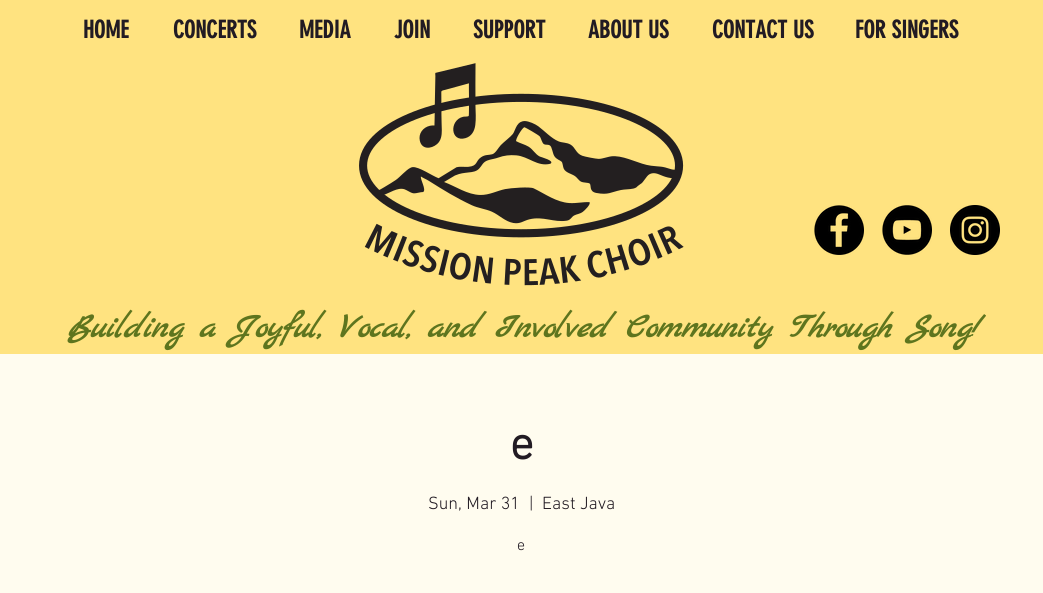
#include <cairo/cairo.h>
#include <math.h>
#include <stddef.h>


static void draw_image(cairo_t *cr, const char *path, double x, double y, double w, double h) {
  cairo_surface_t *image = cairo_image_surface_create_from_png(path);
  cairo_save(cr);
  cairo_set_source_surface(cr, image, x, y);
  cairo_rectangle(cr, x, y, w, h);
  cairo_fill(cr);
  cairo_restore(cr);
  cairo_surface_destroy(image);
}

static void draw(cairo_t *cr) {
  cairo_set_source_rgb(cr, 1, 227 / 255.0, 128 / 255.0);
  cairo_paint(cr);
  draw_image(cr, "images/1.png", 359, 63, 325, 223);
  draw_image(cr, "images/2.png", 814, 205, 50, 50);
  draw_image(cr, "images/3.png", 882, 205, 50, 50);
  draw_image(cr, "images/4.png", 950, 205, 50, 50);
  cairo_set_source_rgb(cr, 1, 252 / 255.0, 239 / 255.0);
  cairo_rectangle(cr, 0, 354, 1043, 239);
  cairo_fill(cr);
  cairo_select_font_face(cr, "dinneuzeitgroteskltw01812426", CAIRO_FONT_SLANT_NORMAL, CAIRO_FONT_WEIGHT_BOLD);
  cairo_set_font_size(cr, 24);
  cairo_set_source_rgb(cr, 34 / 255.0, 27 / 255.0, 35 / 255.0);
  cairo_move_to(cr, 83, 38);
  cairo_show_text(cr, "HOME");
  cairo_move_to(cr, 173, 38);
  cairo_show_text(cr, "CONCERTS");
  cairo_move_to(cr, 299, 38);
  cairo_show_text(cr, "MEDIA");
  cairo_move_to(cr, 394, 38);
  cairo_show_text(cr, "JOIN");
  cairo_move_to(cr, 473, 38);
  cairo_show_text(cr, "SUPPORT");
  cairo_move_to(cr, 588, 38);
  cairo_show_text(cr, "ABOUT US");
  cairo_move_to(cr, 712, 38);
  cairo_show_text(cr, "CONTACT US");
  cairo_move_to(cr, 855, 38);
  cairo_show_text(cr, "FOR SINGERS");
  cairo_select_font_face(cr, "Marck Script", CAIRO_FONT_SLANT_ITALIC, CAIRO_FONT_WEIGHT_BOLD);
  cairo_set_font_size(cr, 34);
  cairo_set_source_rgb(cr, 94 / 255.0, 117 / 255.0, 30 / 255.0);
  cairo_move_to(cr, 67, 337);
  cairo_show_text(cr, "Building a Joyful, Vocal, and Involved Community Through Song!");
  cairo_select_font_face(cr, "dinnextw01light", CAIRO_FONT_SLANT_NORMAL, CAIRO_FONT_WEIGHT_BOLD);
  cairo_set_font_size(cr, 47);
  cairo_set_source_rgb(cr, 34 / 255.0, 27 / 255.0, 35 / 255.0);
  cairo_move_to(cr, 510, 459);
  cairo_show_text(cr, "e");
  cairo_select_font_face(cr, "dinnextw01light Light", CAIRO_FONT_SLANT_NORMAL, CAIRO_FONT_WEIGHT_NORMAL);
  cairo_set_font_size(cr, 18);
  cairo_move_to(cr, 428, 509);
  cairo_show_text(cr, "Sun, Mar 31");
  cairo_move_to(cr, 529, 509);
  cairo_show_text(cr, "|");
  cairo_move_to(cr, 542, 509);
  cairo_show_text(cr, "East Java");
  cairo_set_font_size(cr, 16);
  cairo_move_to(cr, 517, 550);
  cairo_show_text(cr, "e");
}

int main(void) {
  cairo_surface_t *surface = cairo_image_surface_create(CAIRO_FORMAT_RGB24, 1043, 593);
  cairo_t *cr = cairo_create(surface);
  cairo_font_options_t *options = cairo_font_options_create();
  cairo_font_options_set_hint_metrics(options, CAIRO_HINT_METRICS_OFF);
  cairo_font_options_set_hint_style(options, CAIRO_HINT_STYLE_NONE);
  cairo_set_font_options(cr, options);
  cairo_set_miter_limit(cr, 4);
  draw(cr);
  cairo_surface_write_to_png(surface, "out.png");
  cairo_font_options_destroy(options);
  cairo_destroy(cr);
  cairo_surface_destroy(surface);
  return 0;
}
